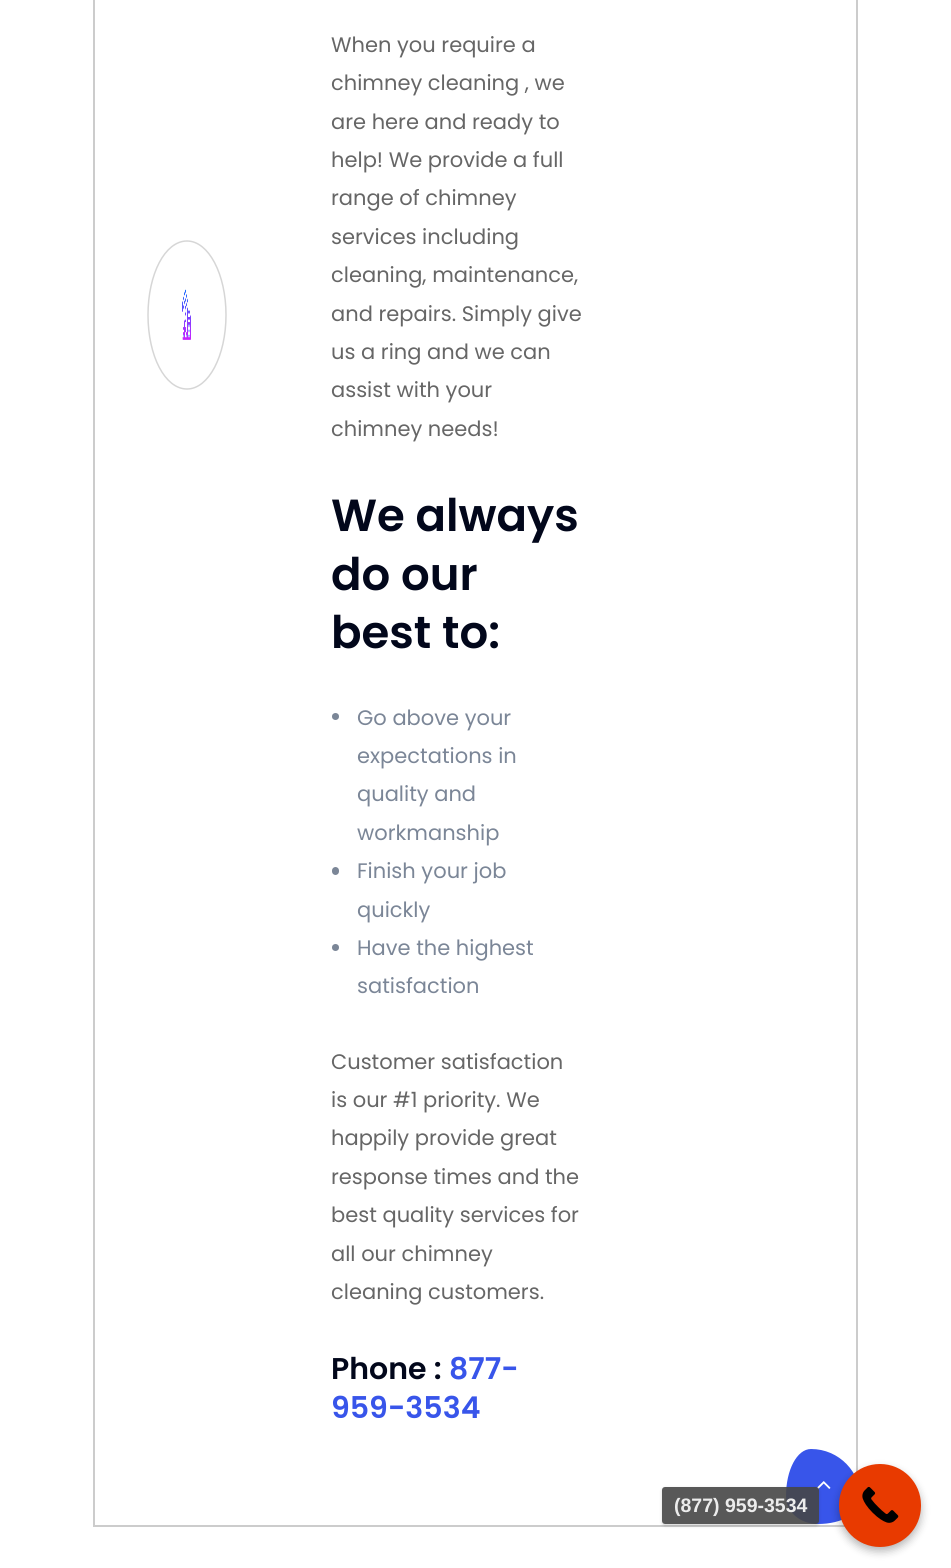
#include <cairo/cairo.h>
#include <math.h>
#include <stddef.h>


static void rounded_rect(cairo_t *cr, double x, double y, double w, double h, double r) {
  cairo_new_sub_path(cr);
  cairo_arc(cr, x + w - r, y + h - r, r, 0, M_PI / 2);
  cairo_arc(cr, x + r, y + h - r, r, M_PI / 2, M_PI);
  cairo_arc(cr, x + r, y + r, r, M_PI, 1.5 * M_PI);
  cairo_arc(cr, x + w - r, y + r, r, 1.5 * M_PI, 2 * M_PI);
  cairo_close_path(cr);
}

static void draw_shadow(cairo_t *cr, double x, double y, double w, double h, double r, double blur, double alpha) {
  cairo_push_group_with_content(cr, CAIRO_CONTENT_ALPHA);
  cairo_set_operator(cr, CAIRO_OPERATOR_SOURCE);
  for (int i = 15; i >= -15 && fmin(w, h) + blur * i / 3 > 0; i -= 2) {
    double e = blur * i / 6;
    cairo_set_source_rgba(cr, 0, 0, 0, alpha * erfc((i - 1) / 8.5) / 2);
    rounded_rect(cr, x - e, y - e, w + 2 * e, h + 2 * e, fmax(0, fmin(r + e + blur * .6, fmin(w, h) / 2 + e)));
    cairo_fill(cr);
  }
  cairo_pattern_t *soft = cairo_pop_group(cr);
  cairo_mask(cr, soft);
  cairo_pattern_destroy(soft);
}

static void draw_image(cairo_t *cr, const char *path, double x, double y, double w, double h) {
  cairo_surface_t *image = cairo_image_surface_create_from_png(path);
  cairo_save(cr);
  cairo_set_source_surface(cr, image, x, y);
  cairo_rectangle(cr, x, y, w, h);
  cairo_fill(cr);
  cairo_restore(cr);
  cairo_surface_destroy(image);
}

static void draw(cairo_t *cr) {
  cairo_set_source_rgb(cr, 1, 1, 1);
  cairo_paint(cr);
  cairo_rectangle(cr, 94, -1, 763, 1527);
  cairo_set_source_rgb(cr, 204 / 255.0, 204 / 255.0, 204 / 255.0);
  cairo_stroke(cr);
  cairo_new_path(cr);
  cairo_move_to(cr, 187, 241);
  cairo_curve_to(cr, 208.5, 241, 226, 274, 226, 315);
  cairo_curve_to(cr, 226, 356, 208.5, 389, 187, 389);
  cairo_curve_to(cr, 165, 389, 148, 356, 148, 315);
  cairo_curve_to(cr, 148, 274, 165, 241, 187, 241);
  cairo_close_path(cr);
  cairo_set_source_rgb(cr, 214 / 255.0, 214 / 255.0, 214 / 255.0);
  cairo_set_line_width(cr, 1.5);
  cairo_stroke(cr);
  draw_image(cr, "images/1.png", 182, 289, 9, 51);
  cairo_set_source_rgb(cr, 123 / 255.0, 134 / 255.0, 151 / 255.0);
  cairo_arc(cr, 335.5, 716.5, 3.5, 0, 2 * M_PI);
  cairo_fill(cr);
  rounded_rect(cr, 332, 867, 7, 8, 3.5);
  cairo_fill(cr);
  cairo_arc(cr, 335.5, 947.5, 3.5, 0, 2 * M_PI);
  cairo_fill(cr);
  cairo_set_source_rgb(cr, 56 / 255.0, 85 / 255.0, 234 / 255.0);
  cairo_new_path(cr);
  cairo_move_to(cr, 811, 1449);
  cairo_curve_to(cr, 839, 1449, 861, 1472, 861, 1500);
  cairo_curve_to(cr, 861, 1513, 842, 1524, 818, 1524);
  cairo_curve_to(cr, 800, 1524, 786, 1512, 786, 1496);
  cairo_curve_to(cr, 786, 1470, 797, 1449, 811, 1449);
  cairo_close_path(cr);
  cairo_fill(cr);
  draw_image(cr, "images/3.png", 817, 1481, 14, 8);
  cairo_set_source_rgb(cr, 0, 0, 0);
  draw_shadow(cr, 839, 1469, 82, 82, 41, 4.5, 0.3);
  cairo_set_source_rgb(cr, 232 / 255.0, 58 / 255.0, 0);
  rounded_rect(cr, 839, 1464, 82, 83, 41);
  cairo_fill(cr);
  draw_image(cr, "images/2.png", 862, 1486, 37, 37);
  cairo_save(cr);
  cairo_set_fill_rule(cr, CAIRO_FILL_RULE_EVEN_ODD);
  cairo_new_path(cr);
  cairo_move_to(cr, 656, 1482);
  cairo_line_to(cr, 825, 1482);
  cairo_line_to(cr, 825, 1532);
  cairo_line_to(cr, 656, 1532);
  cairo_close_path(cr);
  cairo_move_to(cr, 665, 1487);
  cairo_line_to(cr, 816, 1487);
  cairo_curve_to(cr, 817.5, 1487, 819, 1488.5, 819, 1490);
  cairo_line_to(cr, 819, 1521);
  cairo_curve_to(cr, 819, 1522.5, 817.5, 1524, 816, 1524);
  cairo_line_to(cr, 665, 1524);
  cairo_curve_to(cr, 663.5, 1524, 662, 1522.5, 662, 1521);
  cairo_line_to(cr, 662, 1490);
  cairo_curve_to(cr, 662, 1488.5, 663.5, 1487, 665, 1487);
  cairo_close_path(cr);
  cairo_clip(cr);
  cairo_set_source_rgb(cr, 0, 0, 0);
  draw_shadow(cr, 662, 1488, 157, 38, 3, 1.5, 0.15);
  cairo_restore(cr);
  cairo_set_source_rgba(cr, 70 / 255.0, 70 / 255.0, 70 / 255.0, 0.9);
  rounded_rect(cr, 662, 1487, 157, 37, 3);
  cairo_fill(cr);
  cairo_select_font_face(cr, "Poppins", CAIRO_FONT_SLANT_NORMAL, CAIRO_FONT_WEIGHT_NORMAL);
  cairo_set_font_size(cr, 21);
  cairo_set_source_rgb(cr, 102 / 255.0, 102 / 255.0, 102 / 255.0);
  cairo_move_to(cr, 331, 52);
  cairo_show_text(cr, "When you require a");
  cairo_move_to(cr, 331, 90);
  cairo_show_text(cr, "chimney cleaning , we");
  cairo_move_to(cr, 331, 129);
  cairo_show_text(cr, "are here and ready to");
  cairo_move_to(cr, 331, 167);
  cairo_show_text(cr, "help! We provide a full");
  cairo_move_to(cr, 331, 205);
  cairo_show_text(cr, "range of chimney");
  cairo_move_to(cr, 331, 244);
  cairo_show_text(cr, "services including");
  cairo_move_to(cr, 331, 282);
  cairo_show_text(cr, "cleaning, maintenance,");
  cairo_move_to(cr, 331, 321);
  cairo_show_text(cr, "and repairs. Simply give");
  cairo_move_to(cr, 331, 359);
  cairo_show_text(cr, "us a ring and we can");
  cairo_move_to(cr, 331, 397);
  cairo_show_text(cr, "assist with your");
  cairo_move_to(cr, 331, 436);
  cairo_show_text(cr, "chimney needs!");
  cairo_select_font_face(cr, "Poppins SemiBold", CAIRO_FONT_SLANT_NORMAL, CAIRO_FONT_WEIGHT_NORMAL);
  cairo_set_font_size(cr, 45);
  cairo_set_source_rgb(cr, 2 / 255.0, 7 / 255.0, 27 / 255.0);
  cairo_move_to(cr, 331, 531);
  cairo_show_text(cr, "We always");
  cairo_move_to(cr, 331, 590);
  cairo_show_text(cr, "do our");
  cairo_move_to(cr, 331, 648);
  cairo_show_text(cr, "best to:");
  cairo_select_font_face(cr, "Poppins", CAIRO_FONT_SLANT_NORMAL, CAIRO_FONT_WEIGHT_NORMAL);
  cairo_set_font_size(cr, 21);
  cairo_set_source_rgb(cr, 123 / 255.0, 134 / 255.0, 151 / 255.0);
  cairo_move_to(cr, 357, 725);
  cairo_show_text(cr, "Go above your");
  cairo_move_to(cr, 357, 763);
  cairo_show_text(cr, "expectations in");
  cairo_move_to(cr, 357, 801);
  cairo_show_text(cr, "quality and");
  cairo_move_to(cr, 357, 840);
  cairo_show_text(cr, "workmanship");
  cairo_move_to(cr, 357, 878);
  cairo_show_text(cr, "Finish your job");
  cairo_move_to(cr, 357, 917);
  cairo_show_text(cr, "quickly");
  cairo_move_to(cr, 357, 955);
  cairo_show_text(cr, "Have the highest");
  cairo_move_to(cr, 357, 993);
  cairo_show_text(cr, "satisfaction");
  cairo_set_source_rgb(cr, 102 / 255.0, 102 / 255.0, 102 / 255.0);
  cairo_move_to(cr, 331, 1069);
  cairo_show_text(cr, "Customer satisfaction");
  cairo_move_to(cr, 331, 1107);
  cairo_show_text(cr, "is our #1 priority. We");
  cairo_move_to(cr, 331, 1145);
  cairo_show_text(cr, "happily provide great");
  cairo_move_to(cr, 331, 1184);
  cairo_show_text(cr, "response times and the");
  cairo_move_to(cr, 331, 1222);
  cairo_show_text(cr, "best quality services for");
  cairo_move_to(cr, 331, 1261);
  cairo_show_text(cr, "all our chimney");
  cairo_move_to(cr, 331, 1299);
  cairo_show_text(cr, "cleaning customers.");
  cairo_select_font_face(cr, "Poppins SemiBold", CAIRO_FONT_SLANT_NORMAL, CAIRO_FONT_WEIGHT_NORMAL);
  cairo_set_font_size(cr, 30);
  cairo_set_source_rgb(cr, 2 / 255.0, 7 / 255.0, 27 / 255.0);
  cairo_move_to(cr, 331, 1379);
  cairo_show_text(cr, "Phone :");
  cairo_set_source_rgb(cr, 56 / 255.0, 85 / 255.0, 234 / 255.0);
  cairo_move_to(cr, 449, 1379);
  cairo_show_text(cr, "877-");
  cairo_move_to(cr, 331, 1418);
  cairo_show_text(cr, "959-3534");
  cairo_select_font_face(cr, "Liberation Sans", CAIRO_FONT_SLANT_NORMAL, CAIRO_FONT_WEIGHT_BOLD);
  cairo_set_font_size(cr, 19.5);
  cairo_set_source_rgb(cr, 236 / 255.0, 236 / 255.0, 236 / 255.0);
  cairo_move_to(cr, 674, 1512);
  cairo_show_text(cr, "(877) 959-3534");
}

int main(void) {
  cairo_surface_t *surface = cairo_image_surface_create(CAIRO_FORMAT_RGB24, 951, 1568);
  cairo_t *cr = cairo_create(surface);
  cairo_font_options_t *options = cairo_font_options_create();
  cairo_font_options_set_hint_metrics(options, CAIRO_HINT_METRICS_OFF);
  cairo_font_options_set_hint_style(options, CAIRO_HINT_STYLE_NONE);
  cairo_set_font_options(cr, options);
  cairo_set_miter_limit(cr, 4);
  draw(cr);
  cairo_surface_write_to_png(surface, "out.png");
  cairo_font_options_destroy(options);
  cairo_destroy(cr);
  cairo_surface_destroy(surface);
  return 0;
}
